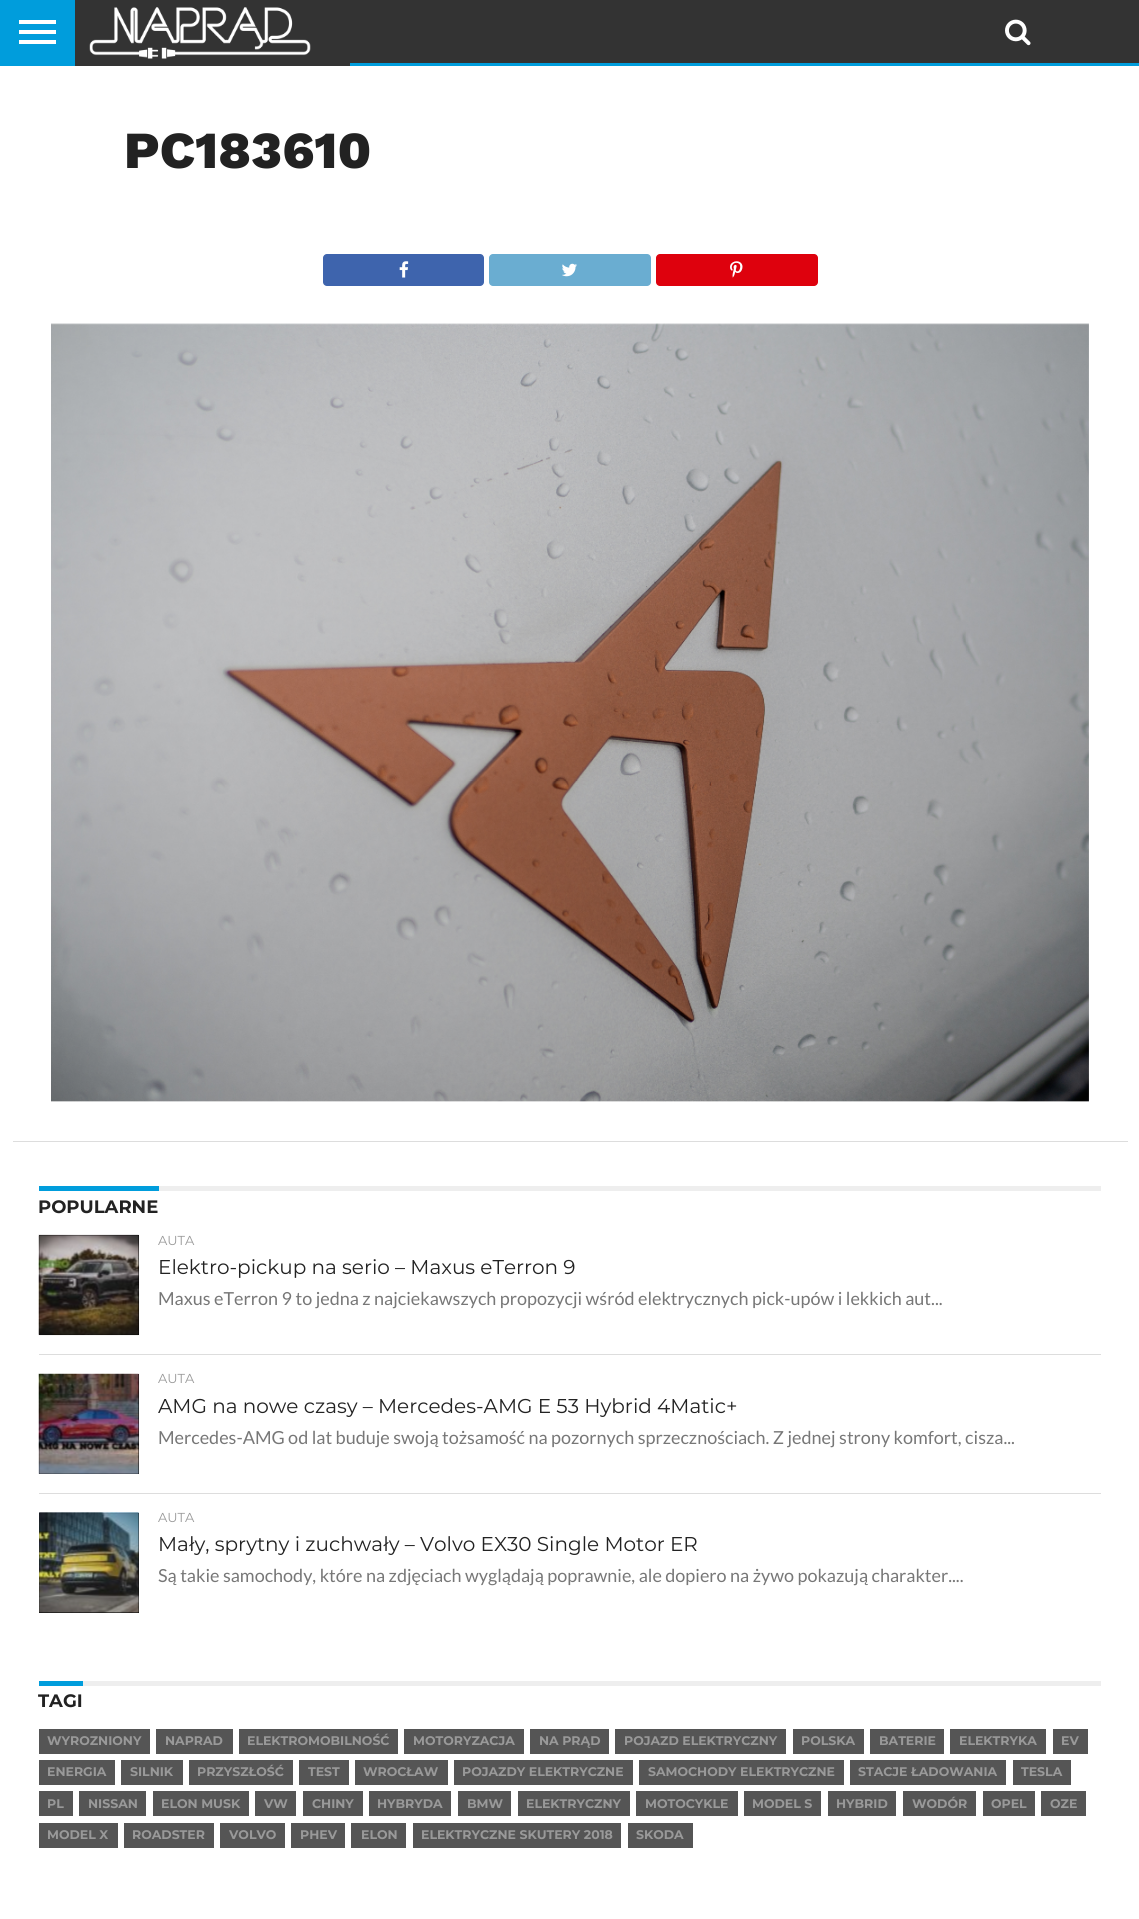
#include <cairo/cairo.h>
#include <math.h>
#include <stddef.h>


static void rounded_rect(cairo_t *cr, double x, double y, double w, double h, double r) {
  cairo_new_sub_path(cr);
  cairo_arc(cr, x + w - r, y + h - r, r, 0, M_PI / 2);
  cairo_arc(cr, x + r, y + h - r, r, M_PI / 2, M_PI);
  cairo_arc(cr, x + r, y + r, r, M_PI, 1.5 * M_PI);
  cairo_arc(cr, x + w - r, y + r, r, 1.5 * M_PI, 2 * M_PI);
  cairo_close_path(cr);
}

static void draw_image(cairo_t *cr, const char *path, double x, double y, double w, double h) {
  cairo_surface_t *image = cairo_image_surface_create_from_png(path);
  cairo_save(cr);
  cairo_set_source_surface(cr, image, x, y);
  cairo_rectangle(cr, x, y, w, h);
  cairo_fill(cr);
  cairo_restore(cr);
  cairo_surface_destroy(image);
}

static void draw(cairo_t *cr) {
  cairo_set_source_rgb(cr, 1, 1, 1);
  cairo_paint(cr);
  cairo_set_source_rgb(cr, 0, 157 / 255.0, 220 / 255.0);
  cairo_rectangle(cr, 0, 0, 1139, 66);
  cairo_fill(cr);
  cairo_set_source_rgb(cr, 1, 1, 1);
  cairo_rectangle(cr, 19, 20, 37, 4);
  cairo_fill(cr);
  cairo_rectangle(cr, 19, 30, 37, 4);
  cairo_fill(cr);
  cairo_rectangle(cr, 19, 40, 37, 4);
  cairo_fill(cr);
  cairo_set_source_rgb(cr, 51 / 255.0, 51 / 255.0, 51 / 255.0);
  cairo_rectangle(cr, 75, 0, 275, 66);
  cairo_fill(cr);
  draw_image(cr, "images/1.png", 89, 7, 222, 52);
  cairo_rectangle(cr, 350, 0, 789, 63);
  cairo_fill(cr);
  draw_image(cr, "images/2.png", 1005, 19, 26, 27);
  cairo_set_source_rgb(cr, 221 / 255.0, 221 / 255.0, 221 / 255.0);
  cairo_rectangle(cr, 13, 1141, 1115, 1);
  cairo_fill(cr);
  cairo_set_source_rgb(cr, 62 / 255.0, 100 / 255.0, 173 / 255.0);
  rounded_rect(cr, 323, 254, 161, 32, 4);
  cairo_fill(cr);
  draw_image(cr, "images/3.png", 399, 261, 10, 17);
  cairo_set_source_rgb(cr, 106 / 255.0, 173 / 255.0, 209 / 255.0);
  rounded_rect(cr, 489, 254, 162, 32, 4);
  cairo_fill(cr);
  draw_image(cr, "images/4.png", 562, 263, 15, 14);
  cairo_set_source_rgb(cr, 222 / 255.0, 1 / 255.0, 13 / 255.0);
  rounded_rect(cr, 656, 254, 162, 32, 4);
  cairo_fill(cr);
  draw_image(cr, "images/5.png", 730, 261, 13, 17);
  draw_image(cr, "images/6.png", 51, 323, 1038, 779);
  cairo_set_source_rgb(cr, 238 / 255.0, 238 / 255.0, 238 / 255.0);
  cairo_rectangle(cr, 159, 1186, 942, 5);
  cairo_fill(cr);
  cairo_set_source_rgb(cr, 0, 157 / 255.0, 220 / 255.0);
  cairo_rectangle(cr, 39, 1186, 120, 5);
  cairo_fill(cr);
  cairo_set_source_rgb(cr, 0, 0, 0);
  cairo_rectangle(cr, 39, 1235, 100, 100);
  cairo_fill(cr);
  draw_image(cr, "images/7.png", 38, 1234, 102, 102);
  cairo_set_source_rgb(cr, 221 / 255.0, 221 / 255.0, 221 / 255.0);
  cairo_rectangle(cr, 39, 1354, 1062, 1);
  cairo_fill(cr);
  cairo_set_source_rgb(cr, 0, 0, 0);
  cairo_rectangle(cr, 39, 1374, 100, 100);
  cairo_fill(cr);
  draw_image(cr, "images/8.png", 38, 1373, 102, 101);
  cairo_set_source_rgb(cr, 221 / 255.0, 221 / 255.0, 221 / 255.0);
  cairo_rectangle(cr, 39, 1493, 1062, 1);
  cairo_fill(cr);
  cairo_set_source_rgb(cr, 0, 0, 0);
  cairo_rectangle(cr, 39, 1513, 100, 100);
  cairo_fill(cr);
  draw_image(cr, "images/9.png", 39, 1512, 100, 101);
  cairo_set_source_rgb(cr, 238 / 255.0, 238 / 255.0, 238 / 255.0);
  cairo_rectangle(cr, 83, 1681, 1018, 5);
  cairo_fill(cr);
  cairo_set_source_rgb(cr, 0, 157 / 255.0, 220 / 255.0);
  cairo_rectangle(cr, 39, 1681, 44, 5);
  cairo_fill(cr);
  cairo_set_source_rgb(cr, 85 / 255.0, 85 / 255.0, 85 / 255.0);
  cairo_rectangle(cr, 39, 1729, 111, 25);
  cairo_fill(cr);
  cairo_rectangle(cr, 156, 1729, 77, 25);
  cairo_fill(cr);
  cairo_rectangle(cr, 239, 1729, 159, 25);
  cairo_fill(cr);
  cairo_rectangle(cr, 404, 1729, 120, 25);
  cairo_fill(cr);
  cairo_rectangle(cr, 530, 1729, 79, 25);
  cairo_fill(cr);
  cairo_rectangle(cr, 615, 1729, 171, 25);
  cairo_fill(cr);
  cairo_rectangle(cr, 793, 1729, 71, 25);
  cairo_fill(cr);
  cairo_rectangle(cr, 870, 1729, 74, 25);
  cairo_fill(cr);
  cairo_rectangle(cr, 950, 1729, 96, 25);
  cairo_fill(cr);
  cairo_rectangle(cr, 1053, 1729, 35, 25);
  cairo_fill(cr);
  cairo_rectangle(cr, 39, 1760, 76, 25);
  cairo_fill(cr);
  cairo_rectangle(cr, 121, 1760, 62, 25);
  cairo_fill(cr);
  cairo_rectangle(cr, 189, 1760, 104, 25);
  cairo_fill(cr);
  cairo_rectangle(cr, 299, 1760, 50, 25);
  cairo_fill(cr);
  cairo_rectangle(cr, 355, 1760, 93, 25);
  cairo_fill(cr);
  cairo_rectangle(cr, 454, 1760, 179, 25);
  cairo_fill(cr);
  cairo_rectangle(cr, 639, 1760, 205, 25);
  cairo_fill(cr);
  cairo_rectangle(cr, 850, 1760, 156, 25);
  cairo_fill(cr);
  cairo_rectangle(cr, 1013, 1760, 58, 25);
  cairo_fill(cr);
  cairo_rectangle(cr, 39, 1791, 34, 25);
  cairo_fill(cr);
  cairo_rectangle(cr, 79, 1791, 67, 25);
  cairo_fill(cr);
  cairo_rectangle(cr, 153, 1791, 96, 25);
  cairo_fill(cr);
  cairo_rectangle(cr, 255, 1791, 41, 25);
  cairo_fill(cr);
  cairo_rectangle(cr, 303, 1791, 60, 25);
  cairo_fill(cr);
  cairo_rectangle(cr, 369, 1791, 82, 25);
  cairo_fill(cr);
  cairo_rectangle(cr, 458, 1791, 53, 25);
  cairo_fill(cr);
  cairo_rectangle(cr, 518, 1791, 112, 25);
  cairo_fill(cr);
  cairo_rectangle(cr, 636, 1791, 102, 25);
  cairo_fill(cr);
  cairo_rectangle(cr, 744, 1791, 77, 25);
  cairo_fill(cr);
  cairo_rectangle(cr, 828, 1791, 68, 25);
  cairo_fill(cr);
  cairo_rectangle(cr, 903, 1791, 73, 25);
  cairo_fill(cr);
  cairo_rectangle(cr, 983, 1791, 52, 25);
  cairo_fill(cr);
  cairo_rectangle(cr, 1041, 1791, 45, 25);
  cairo_fill(cr);
  cairo_rectangle(cr, 39, 1823, 79, 25);
  cairo_fill(cr);
  cairo_rectangle(cr, 124, 1823, 90, 25);
  cairo_fill(cr);
  cairo_rectangle(cr, 220, 1823, 65, 25);
  cairo_fill(cr);
  cairo_rectangle(cr, 291, 1823, 54, 25);
  cairo_fill(cr);
  cairo_rectangle(cr, 351, 1823, 55, 25);
  cairo_fill(cr);
  cairo_rectangle(cr, 413, 1823, 208, 25);
  cairo_fill(cr);
  cairo_rectangle(cr, 628, 1823, 65, 25);
  cairo_fill(cr);
  cairo_select_font_face(cr, "Work Sans ExtraBold", CAIRO_FONT_SLANT_NORMAL, CAIRO_FONT_WEIGHT_NORMAL);
  cairo_set_font_size(cr, 52);
  cairo_set_source_rgb(cr, 34 / 255.0, 34 / 255.0, 34 / 255.0);
  cairo_move_to(cr, 124, 168);
  cairo_show_text(cr, "PC183610");
  cairo_select_font_face(cr, "Montserrat", CAIRO_FONT_SLANT_NORMAL, CAIRO_FONT_WEIGHT_BOLD);
  cairo_set_font_size(cr, 18);
  cairo_move_to(cr, 38, 1213);
  cairo_show_text(cr, "POPULARNE");
  cairo_select_font_face(cr, "Montserrat", CAIRO_FONT_SLANT_NORMAL, CAIRO_FONT_WEIGHT_NORMAL);
  cairo_set_font_size(cr, 13);
  cairo_set_source_rgb(cr, 153 / 255.0, 153 / 255.0, 153 / 255.0);
  cairo_move_to(cr, 158, 1245);
  cairo_show_text(cr, "AUTA");
  cairo_set_font_size(cr, 20);
  cairo_set_source_rgb(cr, 34 / 255.0, 34 / 255.0, 34 / 255.0);
  cairo_move_to(cr, 158, 1274);
  cairo_show_text(cr, "Elektro-pickup na serio – Maxus eTerron 9");
  cairo_select_font_face(cr, "Lato", CAIRO_FONT_SLANT_NORMAL, CAIRO_FONT_WEIGHT_NORMAL);
  cairo_set_font_size(cr, 18);
  cairo_set_source_rgb(cr, 119 / 255.0, 119 / 255.0, 119 / 255.0);
  cairo_move_to(cr, 158, 1305);
  cairo_show_text(cr, "Maxus eTerron 9 to jedna z najciekawszych propozycji wśród elektrycznych pick-upów i lekkich aut...");
  cairo_select_font_face(cr, "Montserrat", CAIRO_FONT_SLANT_NORMAL, CAIRO_FONT_WEIGHT_NORMAL);
  cairo_set_font_size(cr, 13);
  cairo_set_source_rgb(cr, 153 / 255.0, 153 / 255.0, 153 / 255.0);
  cairo_move_to(cr, 158, 1383);
  cairo_show_text(cr, "AUTA");
  cairo_set_font_size(cr, 20);
  cairo_set_source_rgb(cr, 34 / 255.0, 34 / 255.0, 34 / 255.0);
  cairo_move_to(cr, 158, 1413);
  cairo_show_text(cr, "AMG na nowe czasy – Mercedes-AMG E 53 Hybrid 4Matic+");
  cairo_select_font_face(cr, "Lato", CAIRO_FONT_SLANT_NORMAL, CAIRO_FONT_WEIGHT_NORMAL);
  cairo_set_font_size(cr, 18);
  cairo_set_source_rgb(cr, 119 / 255.0, 119 / 255.0, 119 / 255.0);
  cairo_move_to(cr, 158, 1444);
  cairo_show_text(cr, "Mercedes-AMG od lat buduje swoją tożsamość na pozornych sprzecznościach. Z jednej strony komfort, cisza...");
  cairo_select_font_face(cr, "Montserrat", CAIRO_FONT_SLANT_NORMAL, CAIRO_FONT_WEIGHT_NORMAL);
  cairo_set_font_size(cr, 13);
  cairo_set_source_rgb(cr, 153 / 255.0, 153 / 255.0, 153 / 255.0);
  cairo_move_to(cr, 158, 1522);
  cairo_show_text(cr, "AUTA");
  cairo_set_font_size(cr, 20);
  cairo_set_source_rgb(cr, 34 / 255.0, 34 / 255.0, 34 / 255.0);
  cairo_move_to(cr, 158, 1551);
  cairo_show_text(cr, "Mały, sprytny i zuchwały – Volvo EX30 Single Motor ER");
  cairo_select_font_face(cr, "Lato", CAIRO_FONT_SLANT_NORMAL, CAIRO_FONT_WEIGHT_NORMAL);
  cairo_set_font_size(cr, 18);
  cairo_set_source_rgb(cr, 119 / 255.0, 119 / 255.0, 119 / 255.0);
  cairo_move_to(cr, 158, 1582);
  cairo_show_text(cr, "Są takie samochody, które na zdjęciach wyglądają poprawnie, ale dopiero na żywo pokazują charakter....");
  cairo_select_font_face(cr, "Montserrat", CAIRO_FONT_SLANT_NORMAL, CAIRO_FONT_WEIGHT_BOLD);
  cairo_set_source_rgb(cr, 34 / 255.0, 34 / 255.0, 34 / 255.0);
  cairo_move_to(cr, 38, 1707);
  cairo_show_text(cr, "TAGI");
  cairo_set_font_size(cr, 12.5);
  cairo_set_source_rgb(cr, 153 / 255.0, 153 / 255.0, 153 / 255.0);
  cairo_move_to(cr, 47, 1745);
  cairo_show_text(cr, "WYROZNIONY");
  cairo_move_to(cr, 165, 1745);
  cairo_show_text(cr, "NAPRAD");
  cairo_move_to(cr, 247, 1745);
  cairo_show_text(cr, "ELEKTROMOBILNOŚĆ");
  cairo_move_to(cr, 413, 1745);
  cairo_show_text(cr, "MOTORYZACJA");
  cairo_move_to(cr, 539, 1745);
  cairo_show_text(cr, "NA PRĄD");
  cairo_move_to(cr, 624, 1745);
  cairo_show_text(cr, "POJAZD ELEKTRYCZNY");
  cairo_move_to(cr, 801, 1745);
  cairo_show_text(cr, "POLSKA");
  cairo_move_to(cr, 879, 1745);
  cairo_show_text(cr, "BATERIE");
  cairo_move_to(cr, 959, 1745);
  cairo_show_text(cr, "ELEKTRYKA");
  cairo_move_to(cr, 1061, 1745);
  cairo_show_text(cr, "EV");
  cairo_move_to(cr, 47, 1776);
  cairo_show_text(cr, "ENERGIA");
  cairo_move_to(cr, 130, 1776);
  cairo_show_text(cr, "SILNIK");
  cairo_move_to(cr, 197, 1776);
  cairo_show_text(cr, "PRZYSZŁOŚĆ");
  cairo_move_to(cr, 308, 1776);
  cairo_show_text(cr, "TEST");
  cairo_move_to(cr, 363, 1776);
  cairo_show_text(cr, "WROCŁAW");
  cairo_move_to(cr, 462, 1776);
  cairo_show_text(cr, "POJAZDY ELEKTRYCZNE");
  cairo_move_to(cr, 648, 1776);
  cairo_show_text(cr, "SAMOCHODY ELEKTRYCZNE");
  cairo_move_to(cr, 858, 1776);
  cairo_show_text(cr, "STACJE ŁADOWANIA");
  cairo_move_to(cr, 1021, 1776);
  cairo_show_text(cr, "TESLA");
  cairo_move_to(cr, 47, 1808);
  cairo_show_text(cr, "PL");
  cairo_move_to(cr, 88, 1808);
  cairo_show_text(cr, "NISSAN");
  cairo_move_to(cr, 161, 1808);
  cairo_show_text(cr, "ELON MUSK");
  cairo_move_to(cr, 264, 1808);
  cairo_show_text(cr, "VW");
  cairo_move_to(cr, 312, 1808);
  cairo_show_text(cr, "CHINY");
  cairo_move_to(cr, 377, 1808);
  cairo_show_text(cr, "HYBRYDA");
  cairo_move_to(cr, 467, 1808);
  cairo_show_text(cr, "BMW");
  cairo_move_to(cr, 526, 1808);
  cairo_show_text(cr, "ELEKTRYCZNY");
  cairo_move_to(cr, 645, 1808);
  cairo_show_text(cr, "MOTOCYKLE");
  cairo_move_to(cr, 752, 1808);
  cairo_show_text(cr, "MODEL S");
  cairo_move_to(cr, 836, 1808);
  cairo_show_text(cr, "HYBRID");
  cairo_move_to(cr, 912, 1808);
  cairo_show_text(cr, "WODÓR");
  cairo_move_to(cr, 991, 1808);
  cairo_show_text(cr, "OPEL");
  cairo_move_to(cr, 1050, 1808);
  cairo_show_text(cr, "OZE");
  cairo_move_to(cr, 47, 1839);
  cairo_show_text(cr, "MODEL X");
  cairo_move_to(cr, 132, 1839);
  cairo_show_text(cr, "ROADSTER");
  cairo_move_to(cr, 229, 1839);
  cairo_show_text(cr, "VOLVO");
  cairo_move_to(cr, 300, 1839);
  cairo_show_text(cr, "PHEV");
  cairo_move_to(cr, 361, 1839);
  cairo_show_text(cr, "ELON");
  cairo_move_to(cr, 421, 1839);
  cairo_show_text(cr, "ELEKTRYCZNE SKUTERY 2018");
  cairo_move_to(cr, 636, 1839);
  cairo_show_text(cr, "SKODA");
}

int main(void) {
  cairo_surface_t *surface = cairo_image_surface_create(CAIRO_FORMAT_RGB24, 1139, 1919);
  cairo_t *cr = cairo_create(surface);
  cairo_font_options_t *options = cairo_font_options_create();
  cairo_font_options_set_hint_metrics(options, CAIRO_HINT_METRICS_OFF);
  cairo_font_options_set_hint_style(options, CAIRO_HINT_STYLE_NONE);
  cairo_set_font_options(cr, options);
  cairo_set_miter_limit(cr, 4);
  draw(cr);
  cairo_surface_write_to_png(surface, "out.png");
  cairo_font_options_destroy(options);
  cairo_destroy(cr);
  cairo_surface_destroy(surface);
  return 0;
}
